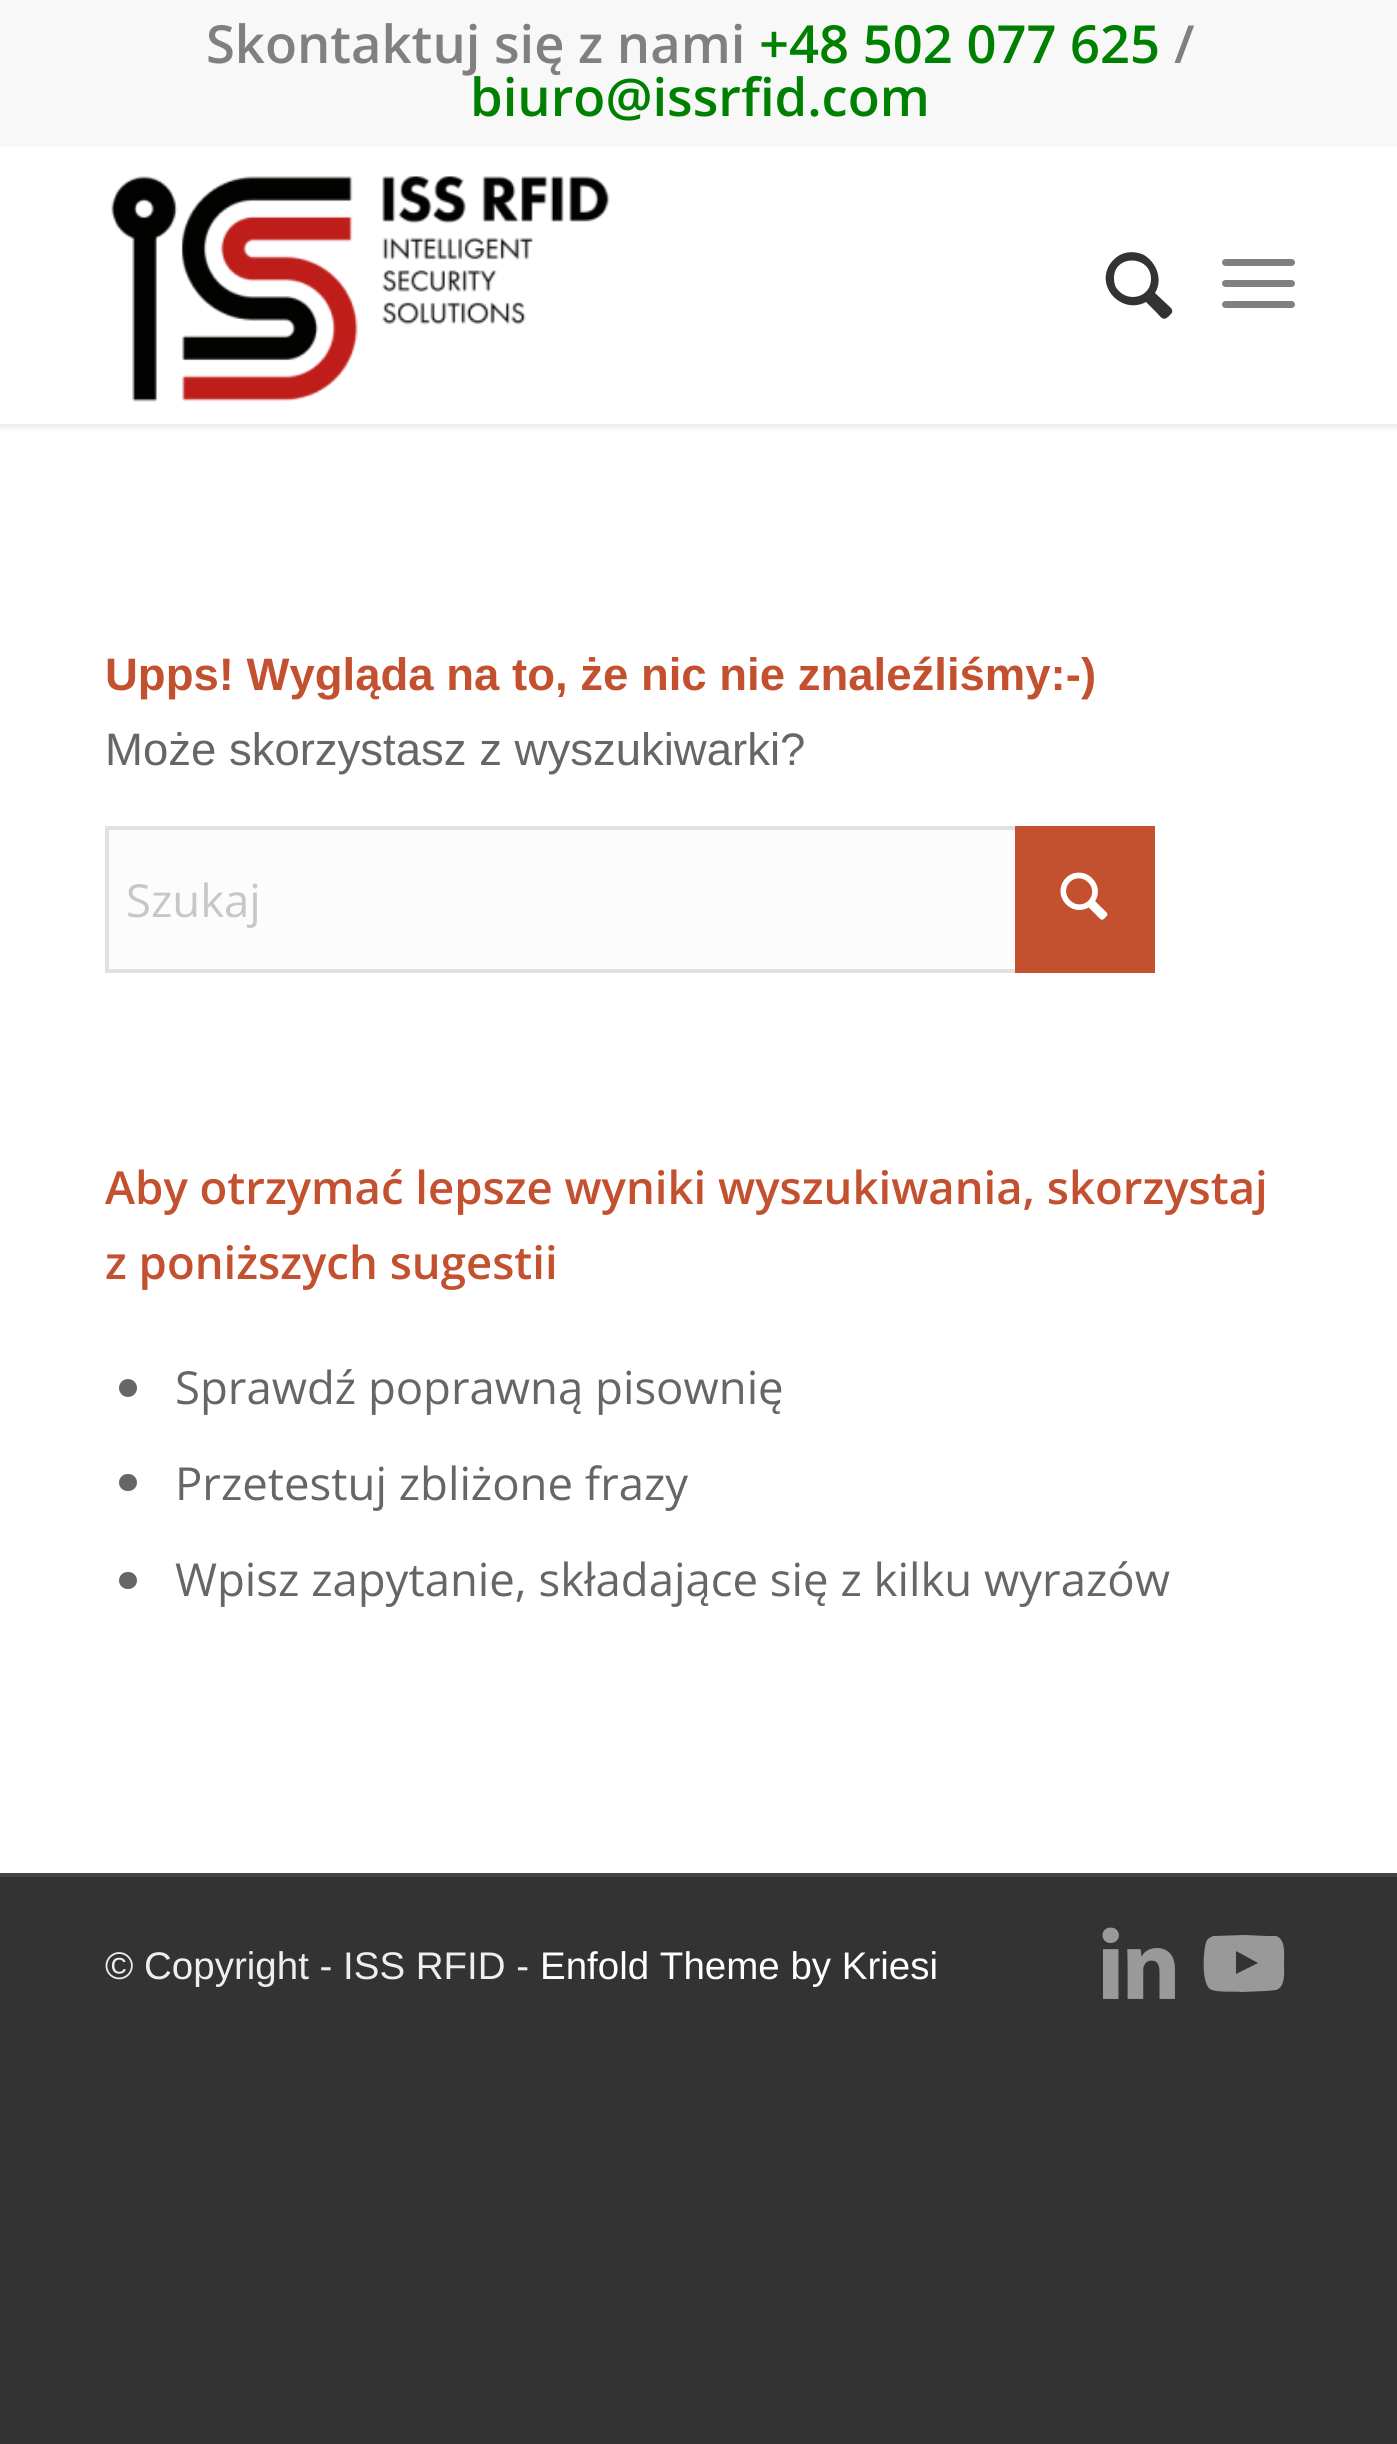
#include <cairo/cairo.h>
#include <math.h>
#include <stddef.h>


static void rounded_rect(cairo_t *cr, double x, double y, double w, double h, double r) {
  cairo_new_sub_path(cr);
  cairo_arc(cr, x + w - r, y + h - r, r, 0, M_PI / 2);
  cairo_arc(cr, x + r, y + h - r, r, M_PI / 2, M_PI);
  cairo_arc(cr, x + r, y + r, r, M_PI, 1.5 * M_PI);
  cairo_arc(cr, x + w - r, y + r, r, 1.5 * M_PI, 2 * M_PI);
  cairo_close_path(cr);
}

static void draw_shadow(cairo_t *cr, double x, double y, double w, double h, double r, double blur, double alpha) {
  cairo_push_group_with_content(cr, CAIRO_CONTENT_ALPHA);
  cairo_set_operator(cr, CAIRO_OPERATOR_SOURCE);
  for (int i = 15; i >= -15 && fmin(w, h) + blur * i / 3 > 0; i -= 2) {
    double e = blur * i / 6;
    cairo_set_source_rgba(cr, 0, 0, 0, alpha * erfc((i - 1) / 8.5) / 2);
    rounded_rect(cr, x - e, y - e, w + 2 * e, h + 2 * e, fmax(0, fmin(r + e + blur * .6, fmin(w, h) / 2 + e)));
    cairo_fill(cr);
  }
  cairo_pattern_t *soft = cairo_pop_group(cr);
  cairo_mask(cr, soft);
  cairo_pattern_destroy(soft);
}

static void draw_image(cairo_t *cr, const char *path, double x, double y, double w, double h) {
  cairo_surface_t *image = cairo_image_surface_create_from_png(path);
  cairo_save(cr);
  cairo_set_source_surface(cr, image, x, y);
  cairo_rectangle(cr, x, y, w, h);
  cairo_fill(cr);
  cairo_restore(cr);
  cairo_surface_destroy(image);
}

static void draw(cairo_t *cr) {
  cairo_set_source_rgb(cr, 51 / 255.0, 51 / 255.0, 51 / 255.0);
  cairo_paint(cr);
  cairo_set_source_rgb(cr, 1, 1, 1);
  cairo_rectangle(cr, 0, 424, 1397, 1449);
  cairo_fill(cr);
  cairo_set_source_rgb(cr, 0, 0, 0);
  draw_shadow(cr, -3, -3, 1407, 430, 0, 3.5, 0.1);
  cairo_set_source_rgb(cr, 248 / 255.0, 248 / 255.0, 248 / 255.0);
  cairo_rectangle(cr, 0, 0, 1397, 147);
  cairo_fill(cr);
  cairo_set_source_rgb(cr, 1, 1, 1);
  cairo_rectangle(cr, 0, 147, 1397, 277);
  cairo_fill(cr);
  draw_image(cr, "images/1.png", 111, 176, 499, 226);
  cairo_set_source_rgb(cr, 51 / 255.0, 51 / 255.0, 51 / 255.0);
  cairo_new_path(cr);
  cairo_move_to(cr, 1171, 308);
  cairo_curve_to(cr, 1174, 312, 1171, 314, 1169, 316);
  cairo_curve_to(cr, 1163, 322, 1161, 317, 1156, 312);
  cairo_line_to(cr, 1146, 302);
  cairo_curve_to(cr, 1122, 315, 1095, 287, 1110, 264);
  cairo_curve_to(cr, 1113, 260, 1117, 256, 1122, 254);
  cairo_curve_to(cr, 1129, 251, 1138, 252, 1144, 255);
  cairo_curve_to(cr, 1157, 263, 1163, 280, 1155, 293);
  cairo_close_path(cr);
  cairo_move_to(cr, 1114, 278);
  cairo_curve_to(cr, 1114, 283, 1115, 287, 1118, 290);
  cairo_curve_to(cr, 1129, 303, 1151, 297, 1151, 279);
  cairo_curve_to(cr, 1151, 255, 1114, 254, 1114, 278);
  cairo_close_path(cr);
  cairo_fill(cr);
  cairo_set_source_rgb(cr, 128 / 255.0, 128 / 255.0, 128 / 255.0);
  rounded_rect(cr, 1222, 280, 73, 7, 3.5);
  cairo_fill(cr);
  rounded_rect(cr, 1222, 259, 73, 7, 3.5);
  cairo_fill(cr);
  rounded_rect(cr, 1222, 301, 73, 7, 3.5);
  cairo_fill(cr);
  cairo_set_source_rgb(cr, 252 / 255.0, 252 / 255.0, 252 / 255.0);
  cairo_rectangle(cr, 109, 830, 906, 139);
  cairo_fill(cr);
  cairo_rectangle(cr, 107, 828, 1046, 143);
  cairo_set_source_rgb(cr, 225 / 255.0, 225 / 255.0, 225 / 255.0);
  cairo_set_line_width(cr, 4);
  cairo_stroke(cr);
  cairo_set_source_rgb(cr, 195 / 255.0, 81 / 255.0, 47 / 255.0);
  cairo_rectangle(cr, 1015, 826, 140, 147);
  cairo_fill(cr);
  draw_image(cr, "images/2.png", 1060, 872, 48, 48);
  cairo_set_source_rgb(cr, 102 / 255.0, 102 / 255.0, 102 / 255.0);
  cairo_arc(cr, 128, 1388, 9, 0, 2 * M_PI);
  cairo_fill(cr);
  rounded_rect(cr, 119, 1474, 18, 17, 8.5);
  cairo_fill(cr);
  rounded_rect(cr, 119, 1572, 18, 17, 8.5);
  cairo_fill(cr);
  cairo_set_source_rgb(cr, 68 / 255.0, 68 / 255.0, 68 / 255.0);
  cairo_rectangle(cr, 0, 1873, 1397, 4);
  cairo_fill(cr);
  draw_image(cr, "images/3.png", 1102, 1927, 73, 72);
  cairo_set_source_rgb(cr, 153 / 255.0, 153 / 255.0, 153 / 255.0);
  cairo_new_path(cr);
  cairo_move_to(cr, 1236, 1974);
  cairo_line_to(cr, 1258, 1963);
  cairo_line_to(cr, 1236, 1951);
  cairo_close_path(cr);
  cairo_move_to(cr, 1244, 1935);
  cairo_line_to(cr, 1267, 1936);
  cairo_line_to(cr, 1276, 1936);
  cairo_curve_to(cr, 1286, 1939, 1284, 1955, 1284, 1963);
  cairo_curve_to(cr, 1284, 1971, 1286, 1987, 1276, 1990);
  cairo_line_to(cr, 1266, 1991);
  cairo_line_to(cr, 1242, 1992);
  cairo_curve_to(cr, 1235, 1991, 1216, 1993, 1210, 1989);
  cairo_curve_to(cr, 1201, 1983, 1203, 1947, 1207, 1940);
  cairo_curve_to(cr, 1209, 1938, 1211, 1937, 1213, 1936);
  cairo_close_path(cr);
  cairo_fill(cr);
  cairo_select_font_face(cr, "Open Sans SemiBold", CAIRO_FONT_SLANT_NORMAL, CAIRO_FONT_WEIGHT_NORMAL);
  cairo_set_font_size(cr, 52.5);
  cairo_set_source_rgb(cr, 128 / 255.0, 128 / 255.0, 128 / 255.0);
  cairo_move_to(cr, 206, 63);
  cairo_show_text(cr, "Skontaktuj się z nami");
  cairo_set_source_rgb(cr, 0, 128 / 255.0, 0);
  cairo_move_to(cr, 759, 63);
  cairo_show_text(cr, "+48 502 077 625");
  cairo_set_source_rgb(cr, 128 / 255.0, 128 / 255.0, 128 / 255.0);
  cairo_move_to(cr, 1174, 63);
  cairo_show_text(cr, "/");
  cairo_set_source_rgb(cr, 0, 128 / 255.0, 0);
  cairo_move_to(cr, 470, 116);
  cairo_show_text(cr, "biuro@issrfid.com");
  cairo_select_font_face(cr, "Liberation Sans", CAIRO_FONT_SLANT_NORMAL, CAIRO_FONT_WEIGHT_BOLD);
  cairo_set_font_size(cr, 45.5);
  cairo_set_source_rgb(cr, 195 / 255.0, 81 / 255.0, 47 / 255.0);
  cairo_move_to(cr, 105, 690);
  cairo_show_text(cr, "Upps! Wygląda na to, że nic nie znaleźliśmy:-)");
  cairo_select_font_face(cr, "Liberation Sans", CAIRO_FONT_SLANT_NORMAL, CAIRO_FONT_WEIGHT_NORMAL);
  cairo_set_source_rgb(cr, 102 / 255.0, 102 / 255.0, 102 / 255.0);
  cairo_move_to(cr, 105, 765);
  cairo_show_text(cr, "Może skorzystasz z wyszukiwarki?");
  cairo_select_font_face(cr, "Open Sans", CAIRO_FONT_SLANT_NORMAL, CAIRO_FONT_WEIGHT_NORMAL);
  cairo_set_source_rgb(cr, 199 / 255.0, 199 / 255.0, 199 / 255.0);
  cairo_move_to(cr, 126, 917);
  cairo_show_text(cr, "Szukaj");
  cairo_select_font_face(cr, "Open Sans SemiBold", CAIRO_FONT_SLANT_NORMAL, CAIRO_FONT_WEIGHT_NORMAL);
  cairo_set_source_rgb(cr, 195 / 255.0, 81 / 255.0, 47 / 255.0);
  cairo_move_to(cr, 105, 1204);
  cairo_show_text(cr, "Aby otrzymać lepsze wyniki wyszukiwania, skorzystaj");
  cairo_move_to(cr, 105, 1279);
  cairo_show_text(cr, "z poniższych sugestii");
  cairo_select_font_face(cr, "Open Sans", CAIRO_FONT_SLANT_NORMAL, CAIRO_FONT_WEIGHT_NORMAL);
  cairo_set_source_rgb(cr, 102 / 255.0, 102 / 255.0, 102 / 255.0);
  cairo_move_to(cr, 175, 1404);
  cairo_show_text(cr, "Sprawdź poprawną pisownię");
  cairo_move_to(cr, 175, 1500);
  cairo_show_text(cr, "Przetestuj zbliżone frazy");
  cairo_move_to(cr, 175, 1596);
  cairo_show_text(cr, "Wpisz zapytanie, składające się z kilku wyrazów");
  cairo_select_font_face(cr, "Liberation Sans", CAIRO_FONT_SLANT_NORMAL, CAIRO_FONT_WEIGHT_NORMAL);
  cairo_set_font_size(cr, 38.5);
  cairo_set_source_rgb(cr, 238 / 255.0, 238 / 255.0, 238 / 255.0);
  cairo_move_to(cr, 105, 1979);
  cairo_show_text(cr, "© Copyright - ISS RFID -");
  cairo_set_source_rgb(cr, 1, 1, 1);
  cairo_move_to(cr, 540, 1979);
  cairo_show_text(cr, "Enfold Theme by Kriesi");
}

int main(void) {
  cairo_surface_t *surface = cairo_image_surface_create(CAIRO_FORMAT_RGB24, 1397, 2444);
  cairo_t *cr = cairo_create(surface);
  cairo_font_options_t *options = cairo_font_options_create();
  cairo_font_options_set_hint_metrics(options, CAIRO_HINT_METRICS_OFF);
  cairo_font_options_set_hint_style(options, CAIRO_HINT_STYLE_NONE);
  cairo_set_font_options(cr, options);
  cairo_set_miter_limit(cr, 4);
  draw(cr);
  cairo_surface_write_to_png(surface, "out.png");
  cairo_font_options_destroy(options);
  cairo_destroy(cr);
  cairo_surface_destroy(surface);
  return 0;
}
